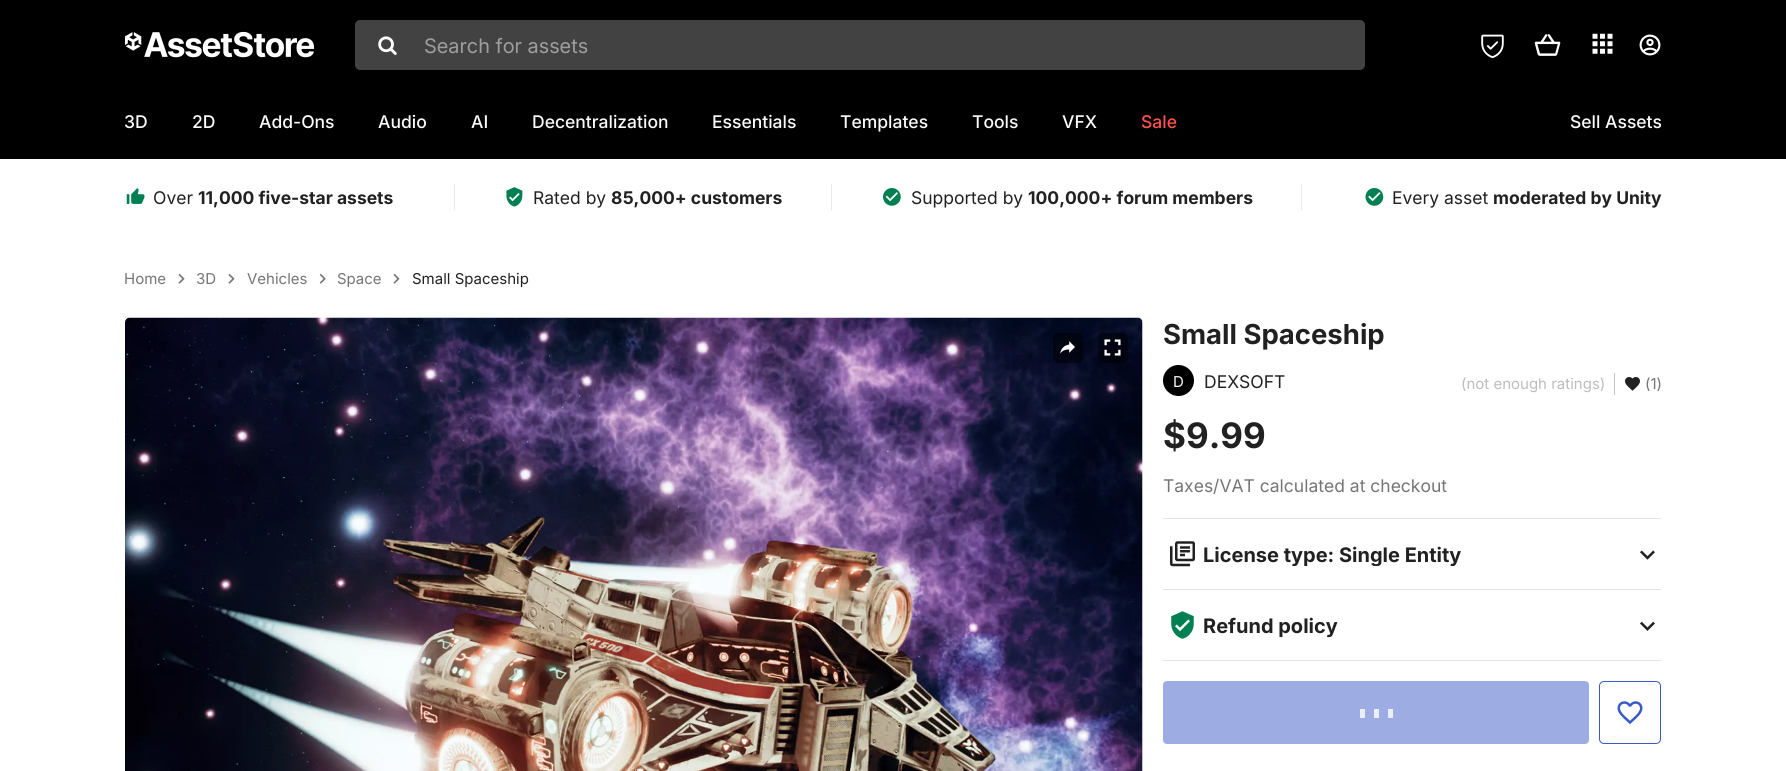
#include <cairo/cairo.h>
#include <math.h>
#include <stddef.h>


static void rounded_rect(cairo_t *cr, double x, double y, double w, double h, double r) {
  cairo_new_sub_path(cr);
  cairo_arc(cr, x + w - r, y + h - r, r, 0, M_PI / 2);
  cairo_arc(cr, x + r, y + h - r, r, M_PI / 2, M_PI);
  cairo_arc(cr, x + r, y + r, r, M_PI, 1.5 * M_PI);
  cairo_arc(cr, x + w - r, y + r, r, 1.5 * M_PI, 2 * M_PI);
  cairo_close_path(cr);
}

static void draw_image(cairo_t *cr, const char *path, double x, double y, double w, double h) {
  cairo_surface_t *image = cairo_image_surface_create_from_png(path);
  cairo_save(cr);
  cairo_set_source_surface(cr, image, x, y);
  cairo_rectangle(cr, x, y, w, h);
  cairo_fill(cr);
  cairo_restore(cr);
  cairo_surface_destroy(image);
}

static void draw(cairo_t *cr) {
  cairo_set_source_rgb(cr, 1, 1, 1);
  cairo_paint(cr);
  cairo_set_source_rgb(cr, 0, 0, 0);
  cairo_rectangle(cr, 0, 0, 1786, 159);
  cairo_fill(cr);
  draw_image(cr, "images/1.png", 125, 31, 190, 27);
  cairo_set_source_rgb(cr, 66 / 255.0, 66 / 255.0, 66 / 255.0);
  rounded_rect(cr, 355, 20, 1010, 50, 5);
  cairo_fill(cr);
  draw_image(cr, "images/2.png", 378, 36, 19, 19);
  draw_image(cr, "images/3.png", 1481, 34, 23, 25);
  draw_image(cr, "images/4.png", 1534, 34, 27, 22);
  draw_image(cr, "images/5.png", 1592, 33, 21, 21);
  draw_image(cr, "images/6.png", 1639, 34, 22, 22);
  draw_image(cr, "images/7.png", 126, 188, 19, 16);
  cairo_set_source_rgb(cr, 233 / 255.0, 233 / 255.0, 233 / 255.0);
  cairo_rectangle(cr, 831, 184, 1, 26);
  cairo_fill(cr);
  cairo_rectangle(cr, 454, 184, 1, 26);
  cairo_fill(cr);
  draw_image(cr, "images/8.png", 506, 187, 17, 20);
  cairo_rectangle(cr, 1301, 184, 1, 26);
  cairo_fill(cr);
  draw_image(cr, "images/9.png", 883, 188, 18, 18);
  draw_image(cr, "images/10.png", 1365, 188, 19, 18);
  draw_image(cr, "images/11.png", 178, 273, 7, 11);
  draw_image(cr, "images/11.png", 228, 273, 7, 11);
  draw_image(cr, "images/12.png", 319, 273, 7, 11);
  draw_image(cr, "images/11.png", 393, 273, 7, 11);
  cairo_set_source_rgb(cr, 245 / 255.0, 245 / 255.0, 245 / 255.0);
  cairo_new_path(cr);
  cairo_move_to(cr, 130, 318);
  cairo_line_to(cr, 1138, 318);
  cairo_curve_to(cr, 1141, 318, 1143, 320, 1143, 323);
  cairo_line_to(cr, 1143, 771);
  cairo_line_to(cr, 125, 771);
  cairo_line_to(cr, 125, 323);
  cairo_curve_to(cr, 125, 320, 127, 318, 130, 318);
  cairo_close_path(cr);
  cairo_fill(cr);
  draw_image(cr, "images/13.png", 125, 317, 1018, 454);
  cairo_set_source_rgba(cr, 0, 0, 0, 0.5);
  rounded_rect(cr, 1053, 333, 30, 30, 5);
  cairo_fill(cr);
  draw_image(cr, "images/14.png", 1060, 341, 15, 13);
  rounded_rect(cr, 1098, 333, 30, 30, 5);
  cairo_fill(cr);
  draw_image(cr, "images/15.png", 1104, 339, 17, 17);
  cairo_set_source_rgb(cr, 0, 0, 0);
  cairo_arc(cr, 1178.5, 380.5, 15.5, 0, 2 * M_PI);
  cairo_fill(cr);
  cairo_set_source_rgb(cr, 194 / 255.0, 194 / 255.0, 194 / 255.0);
  cairo_rectangle(cr, 1614, 373, 1, 22);
  cairo_fill(cr);
  draw_image(cr, "images/16.png", 1625, 377, 15, 14);
  cairo_set_source_rgb(cr, 228 / 255.0, 228 / 255.0, 228 / 255.0);
  cairo_rectangle(cr, 1163, 518, 498, 1);
  cairo_fill(cr);
  draw_image(cr, "images/17.png", 1170, 541, 25, 26);
  draw_image(cr, "images/18.png", 1640, 550, 15, 10);
  cairo_rectangle(cr, 1163, 589, 498, 1);
  cairo_fill(cr);
  cairo_rectangle(cr, 1163, 660, 498, 1);
  cairo_fill(cr);
  draw_image(cr, "images/19.png", 1171, 611, 23, 28);
  draw_image(cr, "images/20.png", 1640, 621, 15, 10);
  cairo_set_source_rgb(cr, 157 / 255.0, 173 / 255.0, 227 / 255.0);
  rounded_rect(cr, 1163, 681, 426, 63, 4);
  cairo_fill(cr);
  cairo_set_source_rgb(cr, 235 / 255.0, 239 / 255.0, 249 / 255.0);
  cairo_rectangle(cr, 1360, 709, 5, 9);
  cairo_fill(cr);
  cairo_rectangle(cr, 1374, 709, 5, 9);
  cairo_fill(cr);
  cairo_rectangle(cr, 1388, 709, 5, 9);
  cairo_fill(cr);
  rounded_rect(cr, 1599.5, 681.5, 61, 62, 4.5);
  cairo_set_source_rgb(cr, 58 / 255.0, 91 / 255.0, 199 / 255.0);
  cairo_set_line_width(cr, 1);
  cairo_stroke(cr);
  draw_image(cr, "images/21.png", 1617, 701, 26, 23);
  cairo_select_font_face(cr, "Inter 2", CAIRO_FONT_SLANT_NORMAL, CAIRO_FONT_WEIGHT_NORMAL);
  cairo_set_font_size(cr, 20);
  cairo_set_source_rgb(cr, 158 / 255.0, 158 / 255.0, 158 / 255.0);
  cairo_move_to(cr, 424, 53);
  cairo_show_text(cr, "Search for assets");
  cairo_select_font_face(cr, "Inter Medium", CAIRO_FONT_SLANT_NORMAL, CAIRO_FONT_WEIGHT_NORMAL);
  cairo_set_font_size(cr, 17.5);
  cairo_set_source_rgb(cr, 250 / 255.0, 250 / 255.0, 250 / 255.0);
  cairo_move_to(cr, 124, 128);
  cairo_show_text(cr, "3D");
  cairo_move_to(cr, 192, 128);
  cairo_show_text(cr, "2D");
  cairo_move_to(cr, 259, 128);
  cairo_show_text(cr, "Add-Ons");
  cairo_move_to(cr, 378, 128);
  cairo_show_text(cr, "Audio");
  cairo_move_to(cr, 471, 128);
  cairo_show_text(cr, "AI");
  cairo_move_to(cr, 532, 128);
  cairo_show_text(cr, "Decentralization");
  cairo_move_to(cr, 712, 128);
  cairo_show_text(cr, "Essentials");
  cairo_move_to(cr, 840, 128);
  cairo_show_text(cr, "Templates");
  cairo_move_to(cr, 972, 128);
  cairo_show_text(cr, "Tools");
  cairo_move_to(cr, 1062, 128);
  cairo_show_text(cr, "VFX");
  cairo_set_source_rgb(cr, 1, 80 / 255.0, 80 / 255.0);
  cairo_move_to(cr, 1141, 128);
  cairo_show_text(cr, "Sale");
  cairo_set_source_rgb(cr, 250 / 255.0, 250 / 255.0, 250 / 255.0);
  cairo_move_to(cr, 1570, 128);
  cairo_show_text(cr, "Sell Assets");
  cairo_select_font_face(cr, "Inter", CAIRO_FONT_SLANT_NORMAL, CAIRO_FONT_WEIGHT_NORMAL);
  cairo_set_source_rgb(cr, 33 / 255.0, 33 / 255.0, 33 / 255.0);
  cairo_move_to(cr, 153, 204);
  cairo_show_text(cr, "Over");
  cairo_select_font_face(cr, "Inter", CAIRO_FONT_SLANT_NORMAL, CAIRO_FONT_WEIGHT_BOLD);
  cairo_move_to(cr, 198, 204);
  cairo_show_text(cr, "11,000 five-star assets");
  cairo_select_font_face(cr, "Inter", CAIRO_FONT_SLANT_NORMAL, CAIRO_FONT_WEIGHT_NORMAL);
  cairo_move_to(cr, 533, 204);
  cairo_show_text(cr, "Rated by");
  cairo_select_font_face(cr, "Inter", CAIRO_FONT_SLANT_NORMAL, CAIRO_FONT_WEIGHT_BOLD);
  cairo_move_to(cr, 611, 204);
  cairo_show_text(cr, "85,000+ customers");
  cairo_select_font_face(cr, "Inter", CAIRO_FONT_SLANT_NORMAL, CAIRO_FONT_WEIGHT_NORMAL);
  cairo_move_to(cr, 911, 204);
  cairo_show_text(cr, "Supported by");
  cairo_select_font_face(cr, "Inter", CAIRO_FONT_SLANT_NORMAL, CAIRO_FONT_WEIGHT_BOLD);
  cairo_move_to(cr, 1028, 204);
  cairo_show_text(cr, "100,000+ forum members");
  cairo_select_font_face(cr, "Inter", CAIRO_FONT_SLANT_NORMAL, CAIRO_FONT_WEIGHT_NORMAL);
  cairo_move_to(cr, 1392, 204);
  cairo_show_text(cr, "Every asset");
  cairo_select_font_face(cr, "Inter", CAIRO_FONT_SLANT_NORMAL, CAIRO_FONT_WEIGHT_BOLD);
  cairo_move_to(cr, 1493, 204);
  cairo_show_text(cr, "moderated by Unity");
  cairo_select_font_face(cr, "Inter", CAIRO_FONT_SLANT_NORMAL, CAIRO_FONT_WEIGHT_NORMAL);
  cairo_set_font_size(cr, 15);
  cairo_set_source_rgb(cr, 117 / 255.0, 117 / 255.0, 117 / 255.0);
  cairo_move_to(cr, 124, 284);
  cairo_show_text(cr, "Home");
  cairo_move_to(cr, 196, 284);
  cairo_show_text(cr, "3D");
  cairo_move_to(cr, 247, 284);
  cairo_show_text(cr, "Vehicles");
  cairo_move_to(cr, 337, 284);
  cairo_show_text(cr, "Space");
  cairo_set_source_rgb(cr, 33 / 255.0, 33 / 255.0, 33 / 255.0);
  cairo_move_to(cr, 412, 284);
  cairo_show_text(cr, "Small Spaceship");
  cairo_select_font_face(cr, "Inter", CAIRO_FONT_SLANT_NORMAL, CAIRO_FONT_WEIGHT_BOLD);
  cairo_set_font_size(cr, 27.5);
  cairo_move_to(cr, 1163, 344);
  cairo_show_text(cr, "Small Spaceship");
  cairo_select_font_face(cr, "Inter", CAIRO_FONT_SLANT_NORMAL, CAIRO_FONT_WEIGHT_NORMAL);
  cairo_set_font_size(cr, 15);
  cairo_set_source_rgb(cr, 250 / 255.0, 250 / 255.0, 250 / 255.0);
  cairo_move_to(cr, 1173, 387);
  cairo_show_text(cr, "D");
  cairo_set_font_size(cr, 17.5);
  cairo_set_source_rgb(cr, 33 / 255.0, 33 / 255.0, 33 / 255.0);
  cairo_move_to(cr, 1204, 388);
  cairo_show_text(cr, "DEXSOFT");
  cairo_set_font_size(cr, 15);
  cairo_set_source_rgb(cr, 189 / 255.0, 189 / 255.0, 189 / 255.0);
  cairo_move_to(cr, 1461, 389);
  cairo_show_text(cr, "(not enough ratings)");
  cairo_set_source_rgb(cr, 117 / 255.0, 117 / 255.0, 117 / 255.0);
  cairo_move_to(cr, 1645, 389);
  cairo_show_text(cr, "(1)");
  cairo_select_font_face(cr, "Inter", CAIRO_FONT_SLANT_NORMAL, CAIRO_FONT_WEIGHT_BOLD);
  cairo_set_font_size(cr, 35);
  cairo_set_source_rgb(cr, 33 / 255.0, 33 / 255.0, 33 / 255.0);
  cairo_move_to(cr, 1163, 448);
  cairo_show_text(cr, "$9.99");
  cairo_select_font_face(cr, "Inter", CAIRO_FONT_SLANT_NORMAL, CAIRO_FONT_WEIGHT_NORMAL);
  cairo_set_font_size(cr, 17.5);
  cairo_set_source_rgb(cr, 117 / 255.0, 117 / 255.0, 117 / 255.0);
  cairo_move_to(cr, 1163, 492);
  cairo_show_text(cr, "Taxes/VAT calculated at checkout");
  cairo_save(cr);
  cairo_rectangle(cr, 1203, 541, 428, 25);
  cairo_clip(cr);
  cairo_select_font_face(cr, "Inter", CAIRO_FONT_SLANT_NORMAL, CAIRO_FONT_WEIGHT_BOLD);
  cairo_set_font_size(cr, 20);
  cairo_set_source_rgb(cr, 33 / 255.0, 33 / 255.0, 33 / 255.0);
  cairo_move_to(cr, 1203, 562);
  cairo_show_text(cr, "License type: Single Entity");
  cairo_restore(cr);
  cairo_select_font_face(cr, "Inter", CAIRO_FONT_SLANT_NORMAL, CAIRO_FONT_WEIGHT_BOLD);
  cairo_set_font_size(cr, 20);
  cairo_set_source_rgb(cr, 33 / 255.0, 33 / 255.0, 33 / 255.0);
  cairo_move_to(cr, 1203, 633);
  cairo_show_text(cr, "Refund policy");
}

int main(void) {
  cairo_surface_t *surface = cairo_image_surface_create(CAIRO_FORMAT_RGB24, 1786, 771);
  cairo_t *cr = cairo_create(surface);
  cairo_font_options_t *options = cairo_font_options_create();
  cairo_font_options_set_hint_metrics(options, CAIRO_HINT_METRICS_OFF);
  cairo_font_options_set_hint_style(options, CAIRO_HINT_STYLE_NONE);
  cairo_set_font_options(cr, options);
  cairo_set_miter_limit(cr, 4);
  draw(cr);
  cairo_surface_write_to_png(surface, "out.png");
  cairo_font_options_destroy(options);
  cairo_destroy(cr);
  cairo_surface_destroy(surface);
  return 0;
}
